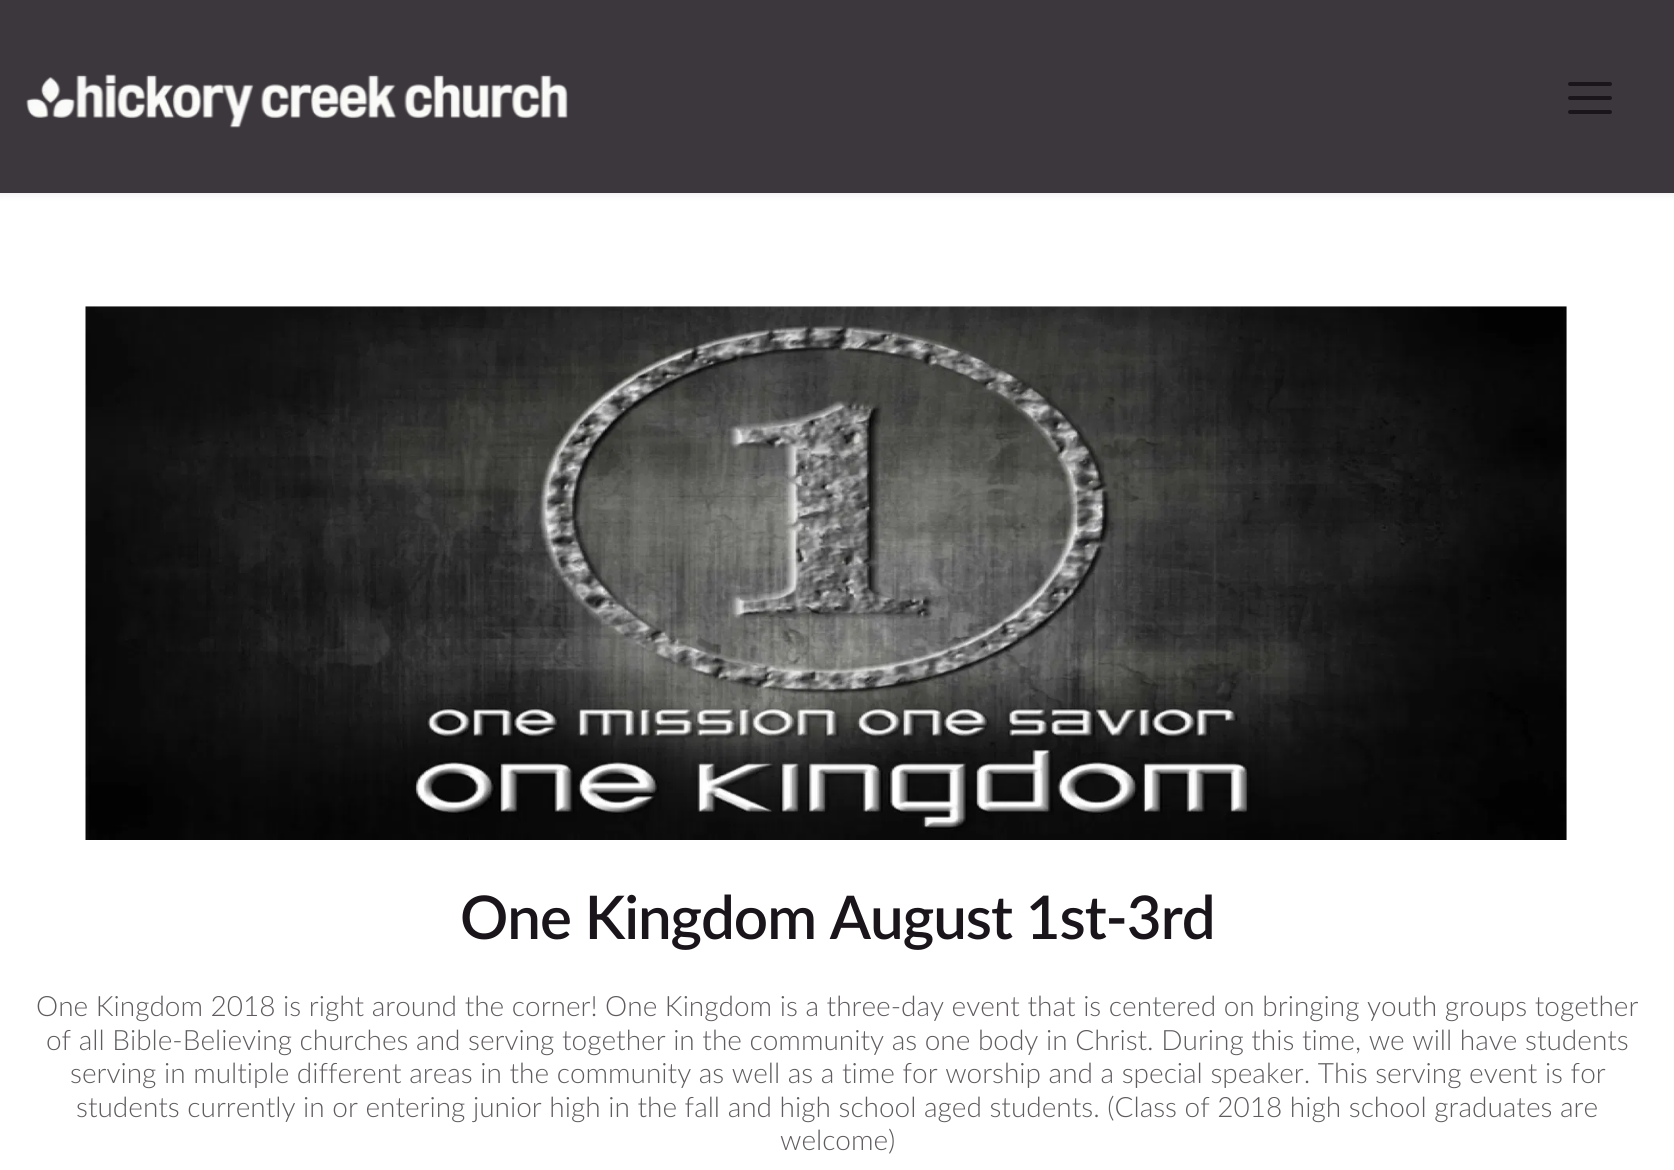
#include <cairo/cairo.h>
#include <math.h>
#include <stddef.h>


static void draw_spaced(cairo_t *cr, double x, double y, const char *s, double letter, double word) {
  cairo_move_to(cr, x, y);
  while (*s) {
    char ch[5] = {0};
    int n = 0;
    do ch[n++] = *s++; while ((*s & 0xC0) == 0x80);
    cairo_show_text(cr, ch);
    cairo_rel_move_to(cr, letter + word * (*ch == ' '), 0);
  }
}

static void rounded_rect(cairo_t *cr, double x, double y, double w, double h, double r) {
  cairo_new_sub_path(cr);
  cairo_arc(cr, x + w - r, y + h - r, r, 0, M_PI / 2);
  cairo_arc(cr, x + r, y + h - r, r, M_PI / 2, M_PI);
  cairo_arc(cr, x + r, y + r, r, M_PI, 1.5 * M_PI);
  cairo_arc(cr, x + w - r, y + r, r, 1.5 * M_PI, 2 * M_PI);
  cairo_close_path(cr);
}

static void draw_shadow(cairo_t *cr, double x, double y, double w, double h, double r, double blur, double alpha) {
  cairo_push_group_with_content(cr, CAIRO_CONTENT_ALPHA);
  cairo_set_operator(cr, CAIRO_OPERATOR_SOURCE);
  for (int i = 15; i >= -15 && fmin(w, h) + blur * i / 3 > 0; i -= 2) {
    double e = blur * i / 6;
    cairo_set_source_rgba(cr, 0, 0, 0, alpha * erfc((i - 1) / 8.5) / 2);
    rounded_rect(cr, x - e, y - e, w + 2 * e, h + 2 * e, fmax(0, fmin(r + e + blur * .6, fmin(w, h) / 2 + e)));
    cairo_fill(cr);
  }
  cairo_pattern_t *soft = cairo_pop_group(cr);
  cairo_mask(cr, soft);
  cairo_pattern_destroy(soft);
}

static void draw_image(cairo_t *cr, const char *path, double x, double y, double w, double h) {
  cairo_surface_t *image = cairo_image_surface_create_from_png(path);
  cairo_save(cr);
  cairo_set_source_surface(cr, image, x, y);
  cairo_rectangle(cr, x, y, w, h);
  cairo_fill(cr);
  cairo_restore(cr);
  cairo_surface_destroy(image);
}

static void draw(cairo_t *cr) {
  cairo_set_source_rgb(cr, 1, 1, 1);
  cairo_paint(cr);
  cairo_save(cr);
  cairo_set_fill_rule(cr, CAIRO_FILL_RULE_EVEN_ODD);
  cairo_new_path(cr);
  cairo_move_to(cr, 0, 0);
  cairo_line_to(cr, 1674, 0);
  cairo_line_to(cr, 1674, 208);
  cairo_line_to(cr, 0, 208);
  cairo_close_path(cr);
  cairo_move_to(cr, 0, 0);
  cairo_line_to(cr, 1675, 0);
  cairo_line_to(cr, 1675, 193);
  cairo_line_to(cr, 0, 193);
  cairo_close_path(cr);
  cairo_clip(cr);
  cairo_set_source_rgb(cr, 0, 0, 0);
  draw_shadow(cr, 0, 0, 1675, 193, 0, 4.5, 0.1);
  cairo_restore(cr);
  cairo_set_source_rgba(cr, 26 / 255.0, 21 / 255.0, 26 / 255.0, 0.85);
  cairo_rectangle(cr, 0, 0, 1674, 193);
  cairo_fill(cr);
  draw_image(cr, "images/1.png", 26, 74, 542, 54);
  cairo_set_source_rgb(cr, 26 / 255.0, 21 / 255.0, 26 / 255.0);
  rounded_rect(cr, 1568, 82, 44, 4, 2);
  cairo_fill(cr);
  rounded_rect(cr, 1568, 96, 44, 4, 2);
  cairo_fill(cr);
  rounded_rect(cr, 1568, 110, 44, 4, 2);
  cairo_fill(cr);
  draw_image(cr, "images/2.png", 85, 306, 1482, 534);
  cairo_select_font_face(cr, "Lato SemiBold", CAIRO_FONT_SLANT_NORMAL, CAIRO_FONT_WEIGHT_NORMAL);
  cairo_set_font_size(cr, 60.1);
  draw_spaced(cr, 460, 939, "One Kingdom August 1st-3rd", -1.05, 0);
  cairo_select_font_face(cr, "Lato Light", CAIRO_FONT_SLANT_NORMAL, CAIRO_FONT_WEIGHT_NORMAL);
  cairo_set_font_size(cr, 28);
  cairo_set_source_rgb(cr, 95 / 255.0, 91 / 255.0, 95 / 255.0);
  cairo_move_to(cr, 36, 1016);
  cairo_show_text(cr, "One Kingdom 2018 is right around the corner! One Kingdom is a three-day event that is centered on bringing youth groups together");
  cairo_move_to(cr, 46, 1050);
  cairo_show_text(cr, "of all Bible-Believing churches and serving together in the community as one body in Christ. During this time, we will have students");
  cairo_move_to(cr, 70, 1083);
  cairo_show_text(cr, "serving in multiple different areas in the community as well as a time for worship and a special speaker. This serving event is for");
  cairo_move_to(cr, 76, 1117);
  cairo_show_text(cr, "students currently in or entering junior high in the fall and high school aged students. (Class of 2018 high school graduates are");
  cairo_move_to(cr, 780, 1150);
  cairo_show_text(cr, "welcome)");
}

int main(void) {
  cairo_surface_t *surface = cairo_image_surface_create(CAIRO_FORMAT_RGB24, 1674, 1170);
  cairo_t *cr = cairo_create(surface);
  cairo_font_options_t *options = cairo_font_options_create();
  cairo_font_options_set_hint_metrics(options, CAIRO_HINT_METRICS_OFF);
  cairo_font_options_set_hint_style(options, CAIRO_HINT_STYLE_NONE);
  cairo_set_font_options(cr, options);
  cairo_set_miter_limit(cr, 4);
  draw(cr);
  cairo_surface_write_to_png(surface, "out.png");
  cairo_font_options_destroy(options);
  cairo_destroy(cr);
  cairo_surface_destroy(surface);
  return 0;
}
